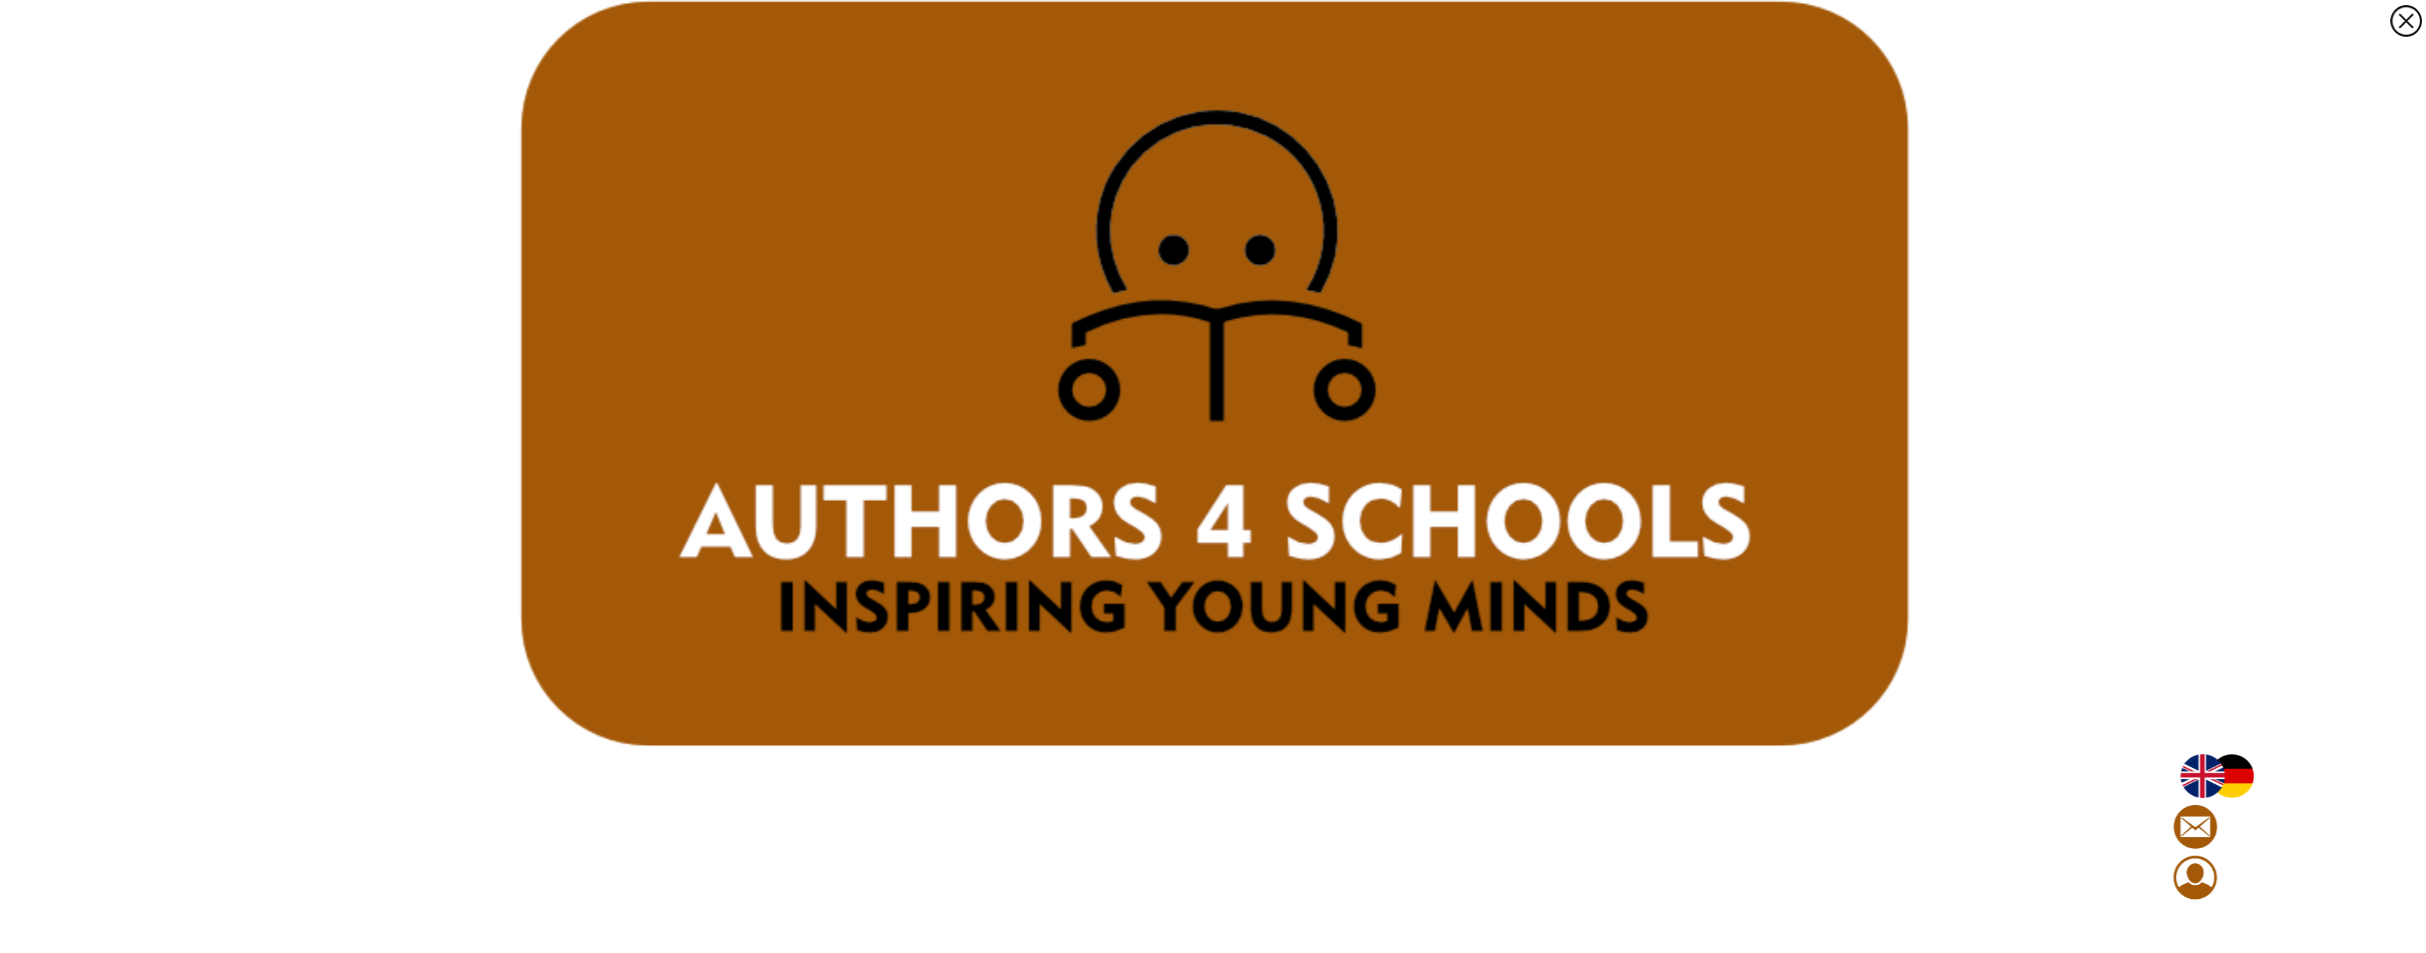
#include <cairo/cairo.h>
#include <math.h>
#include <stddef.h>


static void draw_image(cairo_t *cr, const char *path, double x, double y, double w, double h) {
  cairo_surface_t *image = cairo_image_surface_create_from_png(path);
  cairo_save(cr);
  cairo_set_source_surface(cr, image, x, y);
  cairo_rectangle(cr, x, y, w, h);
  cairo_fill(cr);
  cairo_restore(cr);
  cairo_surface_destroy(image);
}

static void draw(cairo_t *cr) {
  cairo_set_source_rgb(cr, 1, 1, 1);
  cairo_paint(cr);
  draw_image(cr, "images/1.png", 519, 0, 1391, 747);
  draw_image(cr, "images/2.png", 2390, 5, 32, 32);
  draw_image(cr, "images/3.png", 2180, 754, 74, 44);
  draw_image(cr, "images/4.png", 2173, 805, 45, 44);
  draw_image(cr, "images/5.png", 2173, 855, 45, 45);
  draw_image(cr, "images/6.png", 2390, 5, 32, 32);
}

int main(void) {
  cairo_surface_t *surface = cairo_image_surface_create(CAIRO_FORMAT_RGB24, 2426, 953);
  cairo_t *cr = cairo_create(surface);
  cairo_font_options_t *options = cairo_font_options_create();
  cairo_font_options_set_hint_metrics(options, CAIRO_HINT_METRICS_OFF);
  cairo_font_options_set_hint_style(options, CAIRO_HINT_STYLE_NONE);
  cairo_set_font_options(cr, options);
  cairo_set_miter_limit(cr, 4);
  draw(cr);
  cairo_surface_write_to_png(surface, "out.png");
  cairo_font_options_destroy(options);
  cairo_destroy(cr);
  cairo_surface_destroy(surface);
  return 0;
}
